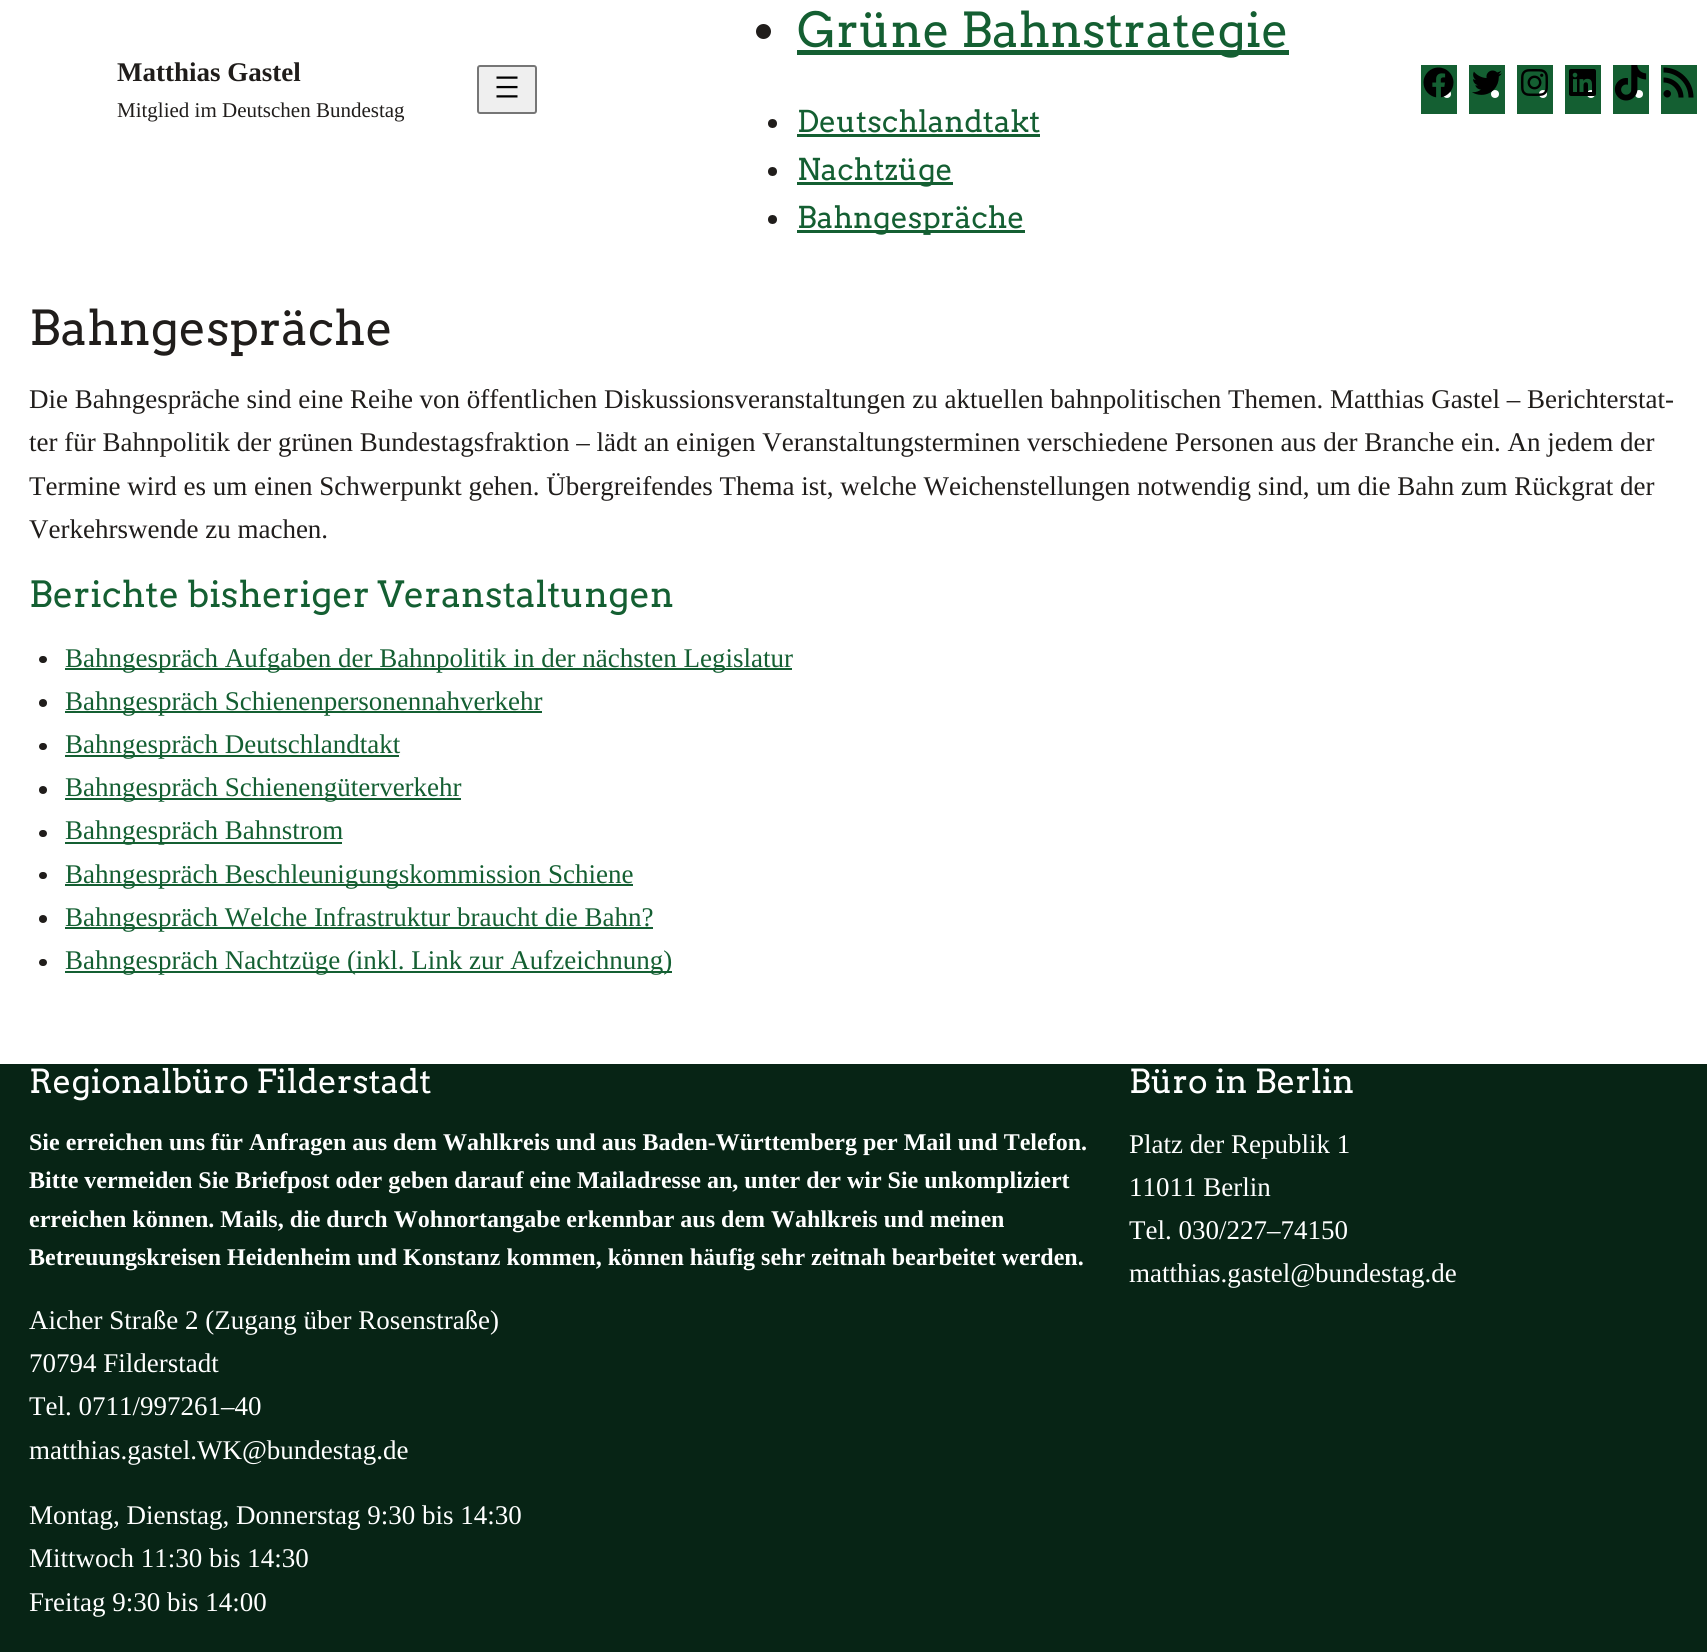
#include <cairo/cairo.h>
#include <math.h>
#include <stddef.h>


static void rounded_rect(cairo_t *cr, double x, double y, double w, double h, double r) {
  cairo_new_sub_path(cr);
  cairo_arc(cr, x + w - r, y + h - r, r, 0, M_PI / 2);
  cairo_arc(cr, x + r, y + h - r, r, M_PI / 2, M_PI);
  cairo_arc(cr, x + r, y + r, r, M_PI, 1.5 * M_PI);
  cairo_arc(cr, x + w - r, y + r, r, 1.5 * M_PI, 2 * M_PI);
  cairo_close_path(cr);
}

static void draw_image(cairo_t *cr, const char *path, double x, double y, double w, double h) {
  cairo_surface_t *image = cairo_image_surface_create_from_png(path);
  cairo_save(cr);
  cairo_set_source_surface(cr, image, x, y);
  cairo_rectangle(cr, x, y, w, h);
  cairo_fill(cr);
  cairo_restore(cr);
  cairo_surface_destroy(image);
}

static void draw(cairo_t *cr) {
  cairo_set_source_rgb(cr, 1, 1, 1);
  cairo_paint(cr);
  cairo_set_source_rgb(cr, 239 / 255.0, 239 / 255.0, 239 / 255.0);
  rounded_rect(cr, 478, 66, 58, 47, 2);
  cairo_fill_preserve(cr);
  cairo_set_source_rgb(cr, 118 / 255.0, 118 / 255.0, 118 / 255.0);
  cairo_stroke(cr);
  draw_image(cr, "images/1.png", 496, 76, 22, 22);
  cairo_set_source_rgb(cr, 32 / 255.0, 29 / 255.0, 27 / 255.0);
  cairo_arc(cr, 763.5, 31.5, 7.5, 0, 2 * M_PI);
  cairo_fill(cr);
  cairo_set_source_rgb(cr, 20 / 255.0, 95 / 255.0, 50 / 255.0);
  cairo_rectangle(cr, 797, 50, 492, 5);
  cairo_fill(cr);
  cairo_set_source_rgb(cr, 32 / 255.0, 29 / 255.0, 27 / 255.0);
  cairo_arc(cr, 772.5, 123.5, 4.5, 0, 2 * M_PI);
  cairo_fill(cr);
  cairo_set_source_rgb(cr, 20 / 255.0, 95 / 255.0, 50 / 255.0);
  cairo_rectangle(cr, 797, 134, 243, 3);
  cairo_fill(cr);
  cairo_set_source_rgb(cr, 32 / 255.0, 29 / 255.0, 27 / 255.0);
  cairo_arc(cr, 772.5, 171.5, 4.5, 0, 2 * M_PI);
  cairo_fill(cr);
  cairo_set_source_rgb(cr, 20 / 255.0, 95 / 255.0, 50 / 255.0);
  cairo_rectangle(cr, 797, 182, 156, 3);
  cairo_fill(cr);
  cairo_set_source_rgb(cr, 32 / 255.0, 29 / 255.0, 27 / 255.0);
  cairo_arc(cr, 772.5, 219.5, 4.5, 0, 2 * M_PI);
  cairo_fill(cr);
  cairo_set_source_rgb(cr, 20 / 255.0, 95 / 255.0, 50 / 255.0);
  cairo_rectangle(cr, 797, 230, 228, 3);
  cairo_fill(cr);
  cairo_rectangle(cr, 1421, 65, 36, 49);
  cairo_fill(cr);
  cairo_set_source_rgb(cr, 1, 1, 1);
  cairo_arc(cr, 1447, 94, 4, 0, 2 * M_PI);
  cairo_fill(cr);
  draw_image(cr, "images/2.png", 1423, 67, 31, 31);
  cairo_set_source_rgb(cr, 20 / 255.0, 95 / 255.0, 50 / 255.0);
  cairo_rectangle(cr, 1469, 65, 36, 49);
  cairo_fill(cr);
  cairo_set_source_rgb(cr, 1, 1, 1);
  cairo_arc(cr, 1495, 94, 4, 0, 2 * M_PI);
  cairo_fill(cr);
  draw_image(cr, "images/3.png", 1472, 70, 30, 25);
  cairo_set_source_rgb(cr, 20 / 255.0, 95 / 255.0, 50 / 255.0);
  cairo_rectangle(cr, 1517, 65, 36, 49);
  cairo_fill(cr);
  cairo_set_source_rgb(cr, 1, 1, 1);
  cairo_arc(cr, 1543, 94, 4, 0, 2 * M_PI);
  cairo_fill(cr);
  draw_image(cr, "images/4.png", 1521, 69, 27, 27);
  cairo_set_source_rgb(cr, 20 / 255.0, 95 / 255.0, 50 / 255.0);
  cairo_rectangle(cr, 1565, 65, 36, 49);
  cairo_fill(cr);
  cairo_set_source_rgb(cr, 1, 1, 1);
  cairo_arc(cr, 1591, 94, 4, 0, 2 * M_PI);
  cairo_fill(cr);
  draw_image(cr, "images/5.png", 1569, 69, 27, 27);
  cairo_set_source_rgb(cr, 20 / 255.0, 95 / 255.0, 50 / 255.0);
  cairo_rectangle(cr, 1613, 65, 36, 49);
  cairo_fill(cr);
  cairo_set_source_rgb(cr, 1, 1, 1);
  cairo_arc(cr, 1639, 94, 4, 0, 2 * M_PI);
  cairo_fill(cr);
  draw_image(cr, "images/6.png", 1614, 65, 33, 36);
  cairo_set_source_rgb(cr, 20 / 255.0, 95 / 255.0, 50 / 255.0);
  cairo_rectangle(cr, 1661, 65, 36, 49);
  cairo_fill(cr);
  draw_image(cr, "images/7.png", 1663, 67, 31, 31);
  cairo_set_source_rgb(cr, 32 / 255.0, 29 / 255.0, 27 / 255.0);
  rounded_rect(cr, 39, 656, 8, 7, 3.5);
  cairo_fill(cr);
  cairo_set_source_rgb(cr, 20 / 255.0, 95 / 255.0, 50 / 255.0);
  cairo_rectangle(cr, 65, 668, 727, 2);
  cairo_fill(cr);
  cairo_set_source_rgb(cr, 32 / 255.0, 29 / 255.0, 27 / 255.0);
  cairo_arc(cr, 43, 703, 4, 0, 2 * M_PI);
  cairo_fill(cr);
  cairo_set_source_rgb(cr, 20 / 255.0, 95 / 255.0, 50 / 255.0);
  cairo_rectangle(cr, 65, 711, 477, 2);
  cairo_fill(cr);
  cairo_set_source_rgb(cr, 32 / 255.0, 29 / 255.0, 27 / 255.0);
  rounded_rect(cr, 39, 743, 8, 7, 3.5);
  cairo_fill(cr);
  cairo_set_source_rgb(cr, 20 / 255.0, 95 / 255.0, 50 / 255.0);
  cairo_rectangle(cr, 65, 755, 334, 2);
  cairo_fill(cr);
  cairo_set_source_rgb(cr, 32 / 255.0, 29 / 255.0, 27 / 255.0);
  cairo_arc(cr, 43, 790, 4, 0, 2 * M_PI);
  cairo_fill(cr);
  cairo_set_source_rgb(cr, 20 / 255.0, 95 / 255.0, 50 / 255.0);
  cairo_rectangle(cr, 65, 798, 396, 2);
  cairo_fill(cr);
  cairo_set_source_rgb(cr, 32 / 255.0, 29 / 255.0, 27 / 255.0);
  rounded_rect(cr, 39, 830, 8, 7, 3.5);
  cairo_fill(cr);
  cairo_set_source_rgb(cr, 20 / 255.0, 95 / 255.0, 50 / 255.0);
  cairo_rectangle(cr, 65, 842, 277, 2);
  cairo_fill(cr);
  cairo_set_source_rgb(cr, 32 / 255.0, 29 / 255.0, 27 / 255.0);
  rounded_rect(cr, 39, 872, 8, 7, 3.5);
  cairo_fill(cr);
  cairo_set_source_rgb(cr, 20 / 255.0, 95 / 255.0, 50 / 255.0);
  cairo_rectangle(cr, 65, 884, 568, 2);
  cairo_fill(cr);
  cairo_set_source_rgb(cr, 32 / 255.0, 29 / 255.0, 27 / 255.0);
  cairo_arc(cr, 43, 919, 4, 0, 2 * M_PI);
  cairo_fill(cr);
  cairo_set_source_rgb(cr, 20 / 255.0, 95 / 255.0, 50 / 255.0);
  cairo_rectangle(cr, 65, 927, 588, 2);
  cairo_fill(cr);
  cairo_set_source_rgb(cr, 32 / 255.0, 29 / 255.0, 27 / 255.0);
  rounded_rect(cr, 39, 959, 8, 7, 3.5);
  cairo_fill(cr);
  cairo_set_source_rgb(cr, 20 / 255.0, 95 / 255.0, 50 / 255.0);
  cairo_rectangle(cr, 65, 971, 607, 2);
  cairo_fill(cr);
  cairo_set_source_rgb(cr, 7 / 255.0, 36 / 255.0, 21 / 255.0);
  cairo_rectangle(cr, 0, 1064, 1707, 588);
  cairo_fill(cr);
  cairo_select_font_face(cr, "Liberation Serif", CAIRO_FONT_SLANT_NORMAL, CAIRO_FONT_WEIGHT_BOLD);
  cairo_set_font_size(cr, 27);
  cairo_set_source_rgb(cr, 32 / 255.0, 29 / 255.0, 27 / 255.0);
  cairo_move_to(cr, 117, 81);
  cairo_show_text(cr, "Matthias Gastel");
  cairo_select_font_face(cr, "Liberation Serif", CAIRO_FONT_SLANT_NORMAL, CAIRO_FONT_WEIGHT_NORMAL);
  cairo_set_font_size(cr, 21);
  cairo_move_to(cr, 117, 117);
  cairo_show_text(cr, "Mitglied im Deutschen Bundestag");
  cairo_select_font_face(cr, "Arvo", CAIRO_FONT_SLANT_NORMAL, CAIRO_FONT_WEIGHT_NORMAL);
  cairo_set_font_size(cr, 48);
  cairo_set_source_rgb(cr, 20 / 255.0, 95 / 255.0, 50 / 255.0);
  cairo_move_to(cr, 797, 47);
  cairo_show_text(cr, "Grüne Bahnstrategie");
  cairo_set_font_size(cr, 30);
  cairo_move_to(cr, 797, 132);
  cairo_show_text(cr, "Deutschlandtakt");
  cairo_move_to(cr, 797, 180);
  cairo_show_text(cr, "Nachtzüge");
  cairo_move_to(cr, 797, 228);
  cairo_show_text(cr, "Bahngespräche");
  cairo_set_font_size(cr, 48);
  cairo_set_source_rgb(cr, 32 / 255.0, 29 / 255.0, 27 / 255.0);
  cairo_move_to(cr, 29, 345);
  cairo_show_text(cr, "Bahngespräche");
  cairo_select_font_face(cr, "Liberation Serif", CAIRO_FONT_SLANT_NORMAL, CAIRO_FONT_WEIGHT_NORMAL);
  cairo_set_font_size(cr, 27);
  cairo_move_to(cr, 29, 408);
  cairo_show_text(cr, "Die Bahngespräche sind eine Reihe von öffentlichen Diskussionsveranstaltungen zu aktuellen bahnpolitischen Themen. Matthias Gastel – Berichterstat-");
  cairo_move_to(cr, 29, 451);
  cairo_show_text(cr, "ter für Bahnpolitik der grünen Bundestagsfraktion – lädt an einigen Veranstaltungsterminen verschiedene Personen aus der Branche ein. An jedem der");
  cairo_move_to(cr, 29, 495);
  cairo_show_text(cr, "Termine wird es um einen Schwerpunkt gehen. Übergreifendes Thema ist, welche Weichenstellungen notwendig sind, um die Bahn zum Rückgrat der");
  cairo_move_to(cr, 29, 538);
  cairo_show_text(cr, "Verkehrswende zu machen.");
  cairo_select_font_face(cr, "Arvo", CAIRO_FONT_SLANT_NORMAL, CAIRO_FONT_WEIGHT_NORMAL);
  cairo_set_font_size(cr, 36);
  cairo_set_source_rgb(cr, 20 / 255.0, 95 / 255.0, 50 / 255.0);
  cairo_move_to(cr, 29, 607);
  cairo_show_text(cr, "Berichte bisheriger Veranstaltungen");
  cairo_select_font_face(cr, "Liberation Serif", CAIRO_FONT_SLANT_NORMAL, CAIRO_FONT_WEIGHT_NORMAL);
  cairo_set_font_size(cr, 27);
  cairo_move_to(cr, 65, 667);
  cairo_show_text(cr, "Bahngespräch Aufgaben der Bahnpolitik in der nächsten Legislatur");
  cairo_move_to(cr, 65, 710);
  cairo_show_text(cr, "Bahngespräch Schienenpersonennahverkehr");
  cairo_move_to(cr, 65, 753);
  cairo_show_text(cr, "Bahngespräch Deutschlandtakt");
  cairo_move_to(cr, 65, 796);
  cairo_show_text(cr, "Bahngespräch Schienengüterverkehr");
  cairo_move_to(cr, 65, 839);
  cairo_show_text(cr, "Bahngespräch Bahnstrom");
  cairo_move_to(cr, 65, 883);
  cairo_show_text(cr, "Bahngespräch Beschleunigungskommission Schiene");
  cairo_move_to(cr, 65, 926);
  cairo_show_text(cr, "Bahngespräch Welche Infrastruktur braucht die Bahn?");
  cairo_move_to(cr, 65, 969);
  cairo_show_text(cr, "Bahngespräch Nachtzüge (inkl. Link zur Aufzeichnung)");
  cairo_select_font_face(cr, "Arvo", CAIRO_FONT_SLANT_NORMAL, CAIRO_FONT_WEIGHT_NORMAL);
  cairo_set_font_size(cr, 33);
  cairo_set_source_rgb(cr, 1, 1, 1);
  cairo_move_to(cr, 29, 1093);
  cairo_show_text(cr, "Regionalbüro Filderstadt");
  cairo_select_font_face(cr, "Liberation Serif", CAIRO_FONT_SLANT_NORMAL, CAIRO_FONT_WEIGHT_BOLD);
  cairo_set_font_size(cr, 24);
  cairo_move_to(cr, 29, 1150);
  cairo_show_text(cr, "Sie erreichen uns für Anfragen aus dem Wahlkreis und aus Baden-Württemberg per Mail und Telefon.");
  cairo_move_to(cr, 29, 1188);
  cairo_show_text(cr, "Bitte vermeiden Sie Briefpost oder geben darauf eine Mailadresse an, unter der wir Sie unkompliziert");
  cairo_move_to(cr, 29, 1227);
  cairo_show_text(cr, "erreichen können. Mails, die durch Wohnortangabe erkennbar aus dem Wahlkreis und meinen");
  cairo_move_to(cr, 29, 1265);
  cairo_show_text(cr, "Betreuungskreisen Heidenheim und Konstanz kommen, können häufig sehr zeitnah bearbeitet werden.");
  cairo_select_font_face(cr, "Liberation Serif", CAIRO_FONT_SLANT_NORMAL, CAIRO_FONT_WEIGHT_NORMAL);
  cairo_set_font_size(cr, 27);
  cairo_move_to(cr, 29, 1329);
  cairo_show_text(cr, "Aicher Straße 2 (Zugang über Rosenstraße)");
  cairo_move_to(cr, 29, 1372);
  cairo_show_text(cr, "70794 Filderstadt");
  cairo_move_to(cr, 29, 1415);
  cairo_show_text(cr, "Tel. 0711/997261–40");
  cairo_move_to(cr, 29, 1459);
  cairo_show_text(cr, "matthias.gastel.WK@bundestag.de");
  cairo_move_to(cr, 29, 1524);
  cairo_show_text(cr, "Montag, Dienstag, Donnerstag 9:30 bis 14:30");
  cairo_move_to(cr, 29, 1567);
  cairo_show_text(cr, "Mittwoch 11:30 bis 14:30");
  cairo_move_to(cr, 29, 1611);
  cairo_show_text(cr, "Freitag 9:30 bis 14:00");
  cairo_select_font_face(cr, "Arvo", CAIRO_FONT_SLANT_NORMAL, CAIRO_FONT_WEIGHT_NORMAL);
  cairo_set_font_size(cr, 33);
  cairo_move_to(cr, 1129, 1093);
  cairo_show_text(cr, "Büro in Berlin");
  cairo_select_font_face(cr, "Liberation Serif", CAIRO_FONT_SLANT_NORMAL, CAIRO_FONT_WEIGHT_NORMAL);
  cairo_set_font_size(cr, 27);
  cairo_move_to(cr, 1129, 1153);
  cairo_show_text(cr, "Platz der Republik 1");
  cairo_move_to(cr, 1129, 1196);
  cairo_show_text(cr, "11011 Berlin");
  cairo_move_to(cr, 1129, 1239);
  cairo_show_text(cr, "Tel. 030/227–74150");
  cairo_move_to(cr, 1129, 1282);
  cairo_show_text(cr, "matthias.gastel@bundestag.de");
}

int main(void) {
  cairo_surface_t *surface = cairo_image_surface_create(CAIRO_FORMAT_RGB24, 1707, 1652);
  cairo_t *cr = cairo_create(surface);
  cairo_font_options_t *options = cairo_font_options_create();
  cairo_font_options_set_hint_metrics(options, CAIRO_HINT_METRICS_OFF);
  cairo_font_options_set_hint_style(options, CAIRO_HINT_STYLE_NONE);
  cairo_set_font_options(cr, options);
  cairo_set_miter_limit(cr, 4);
  draw(cr);
  cairo_surface_write_to_png(surface, "out.png");
  cairo_font_options_destroy(options);
  cairo_destroy(cr);
  cairo_surface_destroy(surface);
  return 0;
}
